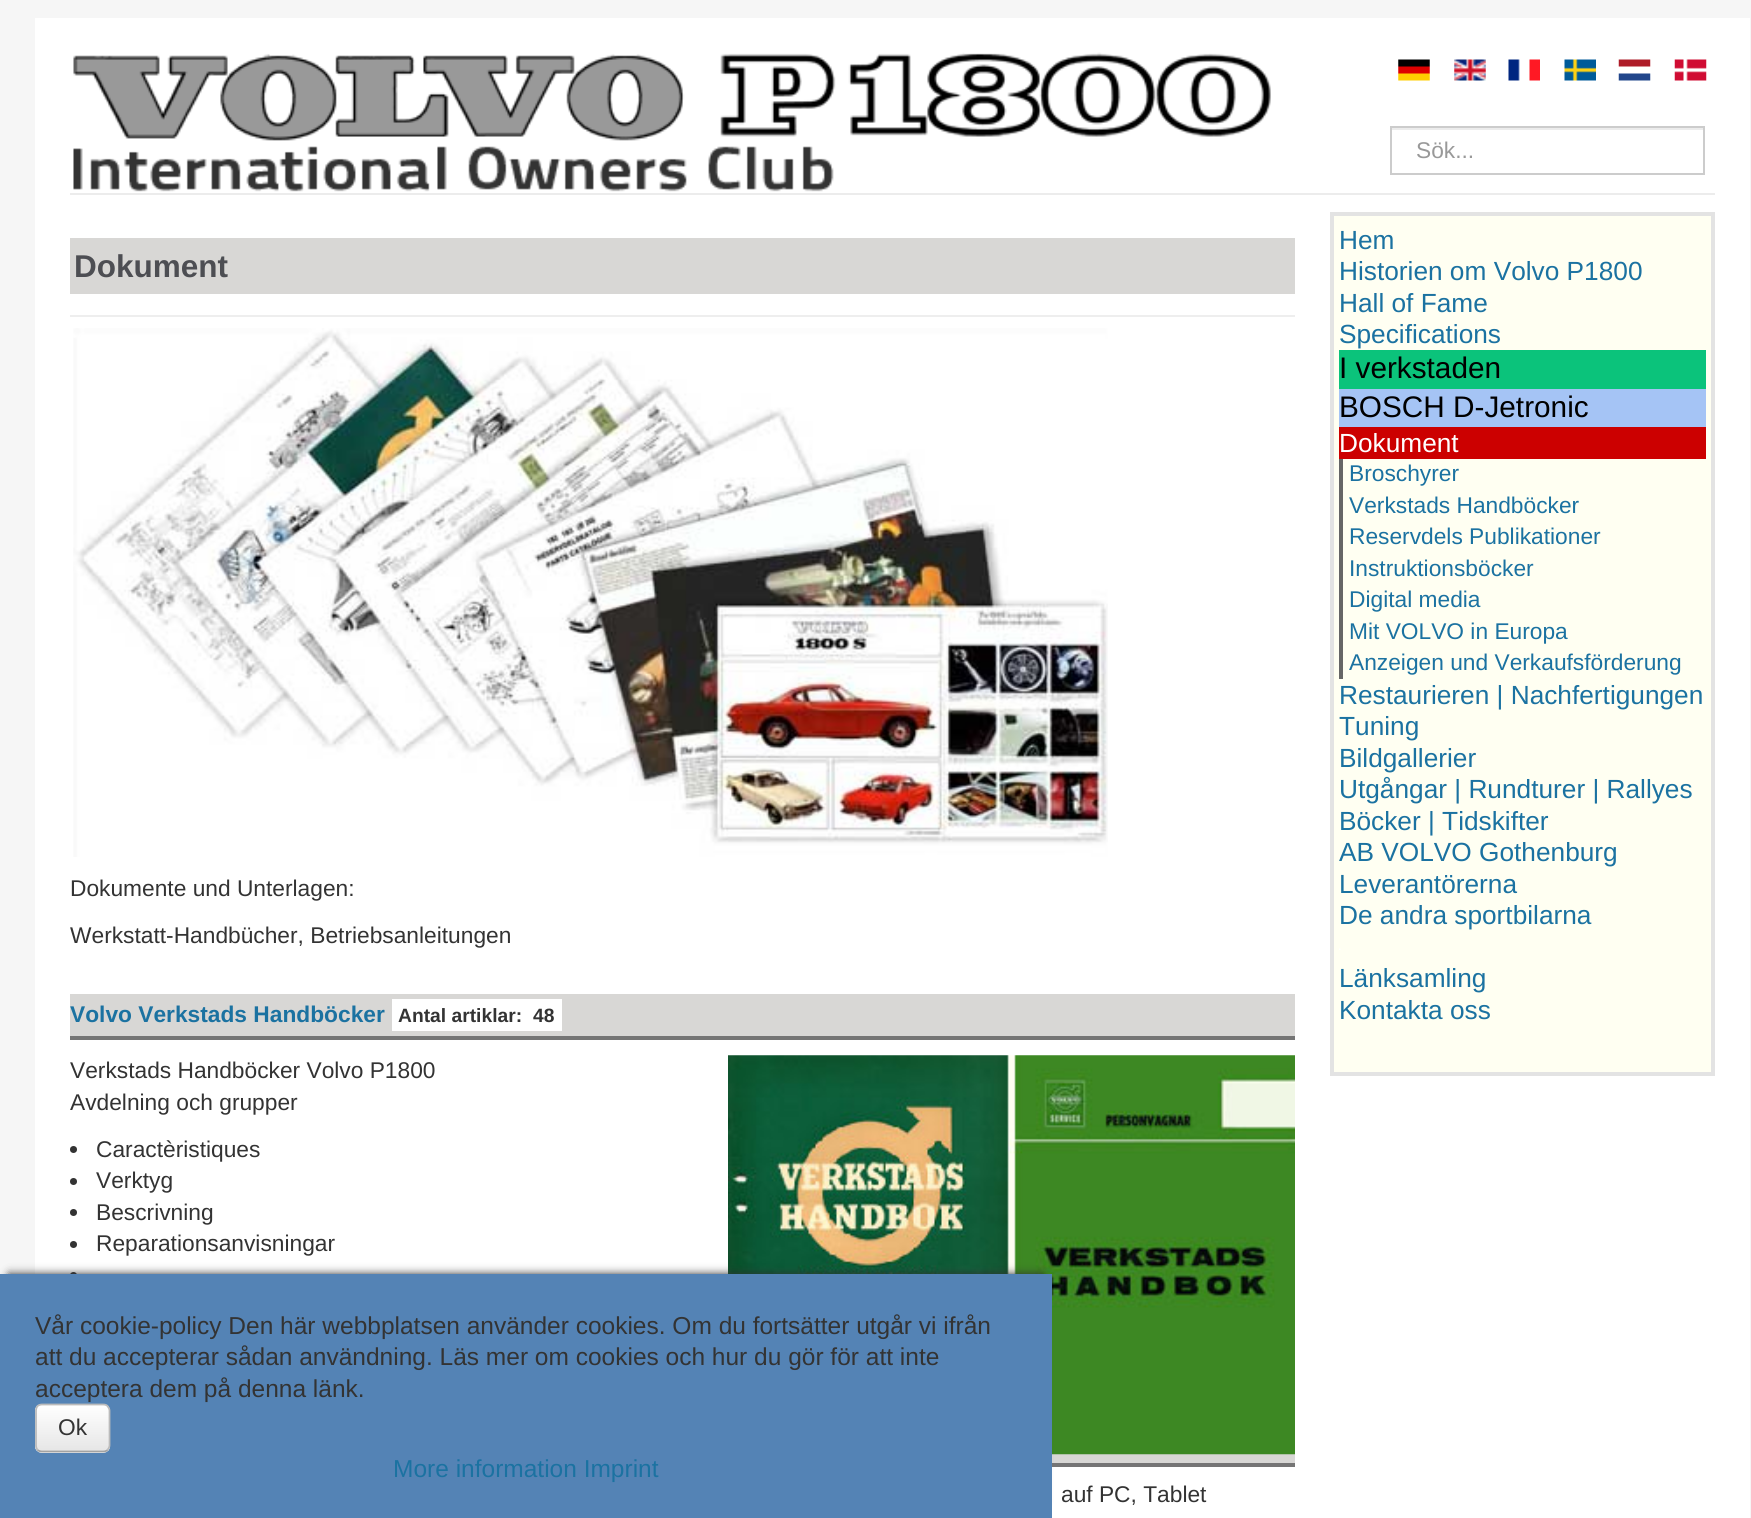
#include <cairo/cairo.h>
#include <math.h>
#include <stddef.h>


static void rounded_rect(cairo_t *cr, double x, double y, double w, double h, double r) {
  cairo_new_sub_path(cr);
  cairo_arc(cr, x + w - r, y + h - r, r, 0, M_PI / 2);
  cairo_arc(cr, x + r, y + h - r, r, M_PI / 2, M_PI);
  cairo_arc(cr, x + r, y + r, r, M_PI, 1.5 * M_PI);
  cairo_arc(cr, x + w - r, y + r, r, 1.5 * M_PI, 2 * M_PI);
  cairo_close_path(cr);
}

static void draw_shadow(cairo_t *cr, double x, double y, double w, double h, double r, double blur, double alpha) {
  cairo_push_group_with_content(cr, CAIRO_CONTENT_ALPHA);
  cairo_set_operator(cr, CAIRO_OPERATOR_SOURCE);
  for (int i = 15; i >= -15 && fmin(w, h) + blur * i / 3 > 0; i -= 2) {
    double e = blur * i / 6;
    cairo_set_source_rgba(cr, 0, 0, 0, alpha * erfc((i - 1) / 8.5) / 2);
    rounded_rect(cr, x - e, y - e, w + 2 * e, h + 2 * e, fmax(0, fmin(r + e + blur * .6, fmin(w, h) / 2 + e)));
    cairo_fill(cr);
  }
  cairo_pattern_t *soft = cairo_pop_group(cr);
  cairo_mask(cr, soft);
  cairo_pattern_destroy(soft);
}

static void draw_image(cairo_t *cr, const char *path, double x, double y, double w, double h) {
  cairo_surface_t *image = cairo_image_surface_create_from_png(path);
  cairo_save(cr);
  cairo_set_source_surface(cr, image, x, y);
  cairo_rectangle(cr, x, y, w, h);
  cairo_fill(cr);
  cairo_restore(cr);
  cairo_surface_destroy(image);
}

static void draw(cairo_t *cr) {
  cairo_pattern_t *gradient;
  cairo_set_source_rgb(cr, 246 / 255.0, 246 / 255.0, 246 / 255.0);
  cairo_paint(cr);
  cairo_set_source_rgb(cr, 1, 1, 1);
  cairo_rectangle(cr, 35, 18, 1715, 1500);
  cairo_fill(cr);
  cairo_set_source_rgb(cr, 236 / 255.0, 236 / 255.0, 236 / 255.0);
  cairo_rectangle(cr, 70, 193, 1645, 2);
  cairo_fill(cr);
  draw_image(cr, "images/1.png", 73, 52, 1198, 140);
  draw_image(cr, "images/2.png", 1398, 59, 32, 22);
  draw_image(cr, "images/3.png", 1454, 59, 32, 22);
  draw_image(cr, "images/4.png", 1508, 59, 32, 22);
  draw_image(cr, "images/5.png", 1564, 59, 32, 22);
  draw_image(cr, "images/6.png", 1618, 59, 33, 22);
  draw_image(cr, "images/7.png", 1674, 59, 33, 22);
  cairo_rectangle(cr, 1391, 128, 312, 2);
  cairo_fill(cr);
  cairo_rectangle(cr, 1391, 127, 313, 47);
  cairo_set_source_rgb(cr, 204 / 255.0, 204 / 255.0, 204 / 255.0);
  cairo_stroke(cr);
  cairo_set_source_rgb(cr, 238 / 255.0, 238 / 255.0, 238 / 255.0);
  cairo_rectangle(cr, 70, 315, 1225, 2);
  cairo_fill(cr);
  cairo_set_source_rgb(cr, 216 / 255.0, 215 / 255.0, 213 / 255.0);
  cairo_rectangle(cr, 70, 238, 1225, 56);
  cairo_fill(cr);
  draw_image(cr, "images/8.png", 73, 328, 1035, 529);
  cairo_rectangle(cr, 70, 994, 1225, 42);
  cairo_fill(cr);
  cairo_set_source_rgb(cr, 117 / 255.0, 117 / 255.0, 117 / 255.0);
  cairo_rectangle(cr, 70, 1036, 1225, 4);
  cairo_fill(cr);
  cairo_set_source_rgb(cr, 1, 1, 1);
  cairo_rectangle(cr, 392, 999, 170, 32);
  cairo_fill(cr);
  cairo_set_source_rgb(cr, 216 / 255.0, 215 / 255.0, 213 / 255.0);
  cairo_rectangle(cr, 1052, 1454, 243, 9);
  cairo_fill(cr);
  draw_image(cr, "images/9.png", 728, 1055, 567, 400);
  cairo_set_source_rgb(cr, 51 / 255.0, 51 / 255.0, 51 / 255.0);
  cairo_arc(cr, 73.5, 1149.5, 3.5, 0, 2 * M_PI);
  cairo_fill(cr);
  cairo_arc(cr, 73.5, 1181.5, 3.5, 0, 2 * M_PI);
  cairo_fill(cr);
  cairo_arc(cr, 73.5, 1212.5, 3.5, 0, 2 * M_PI);
  cairo_fill(cr);
  cairo_arc(cr, 73.5, 1244.5, 3.5, 0, 2 * M_PI);
  cairo_fill(cr);
  cairo_arc(cr, 73.5, 1275.5, 3.5, 0, 2 * M_PI);
  cairo_fill(cr);
  cairo_set_source_rgb(cr, 117 / 255.0, 117 / 255.0, 117 / 255.0);
  cairo_rectangle(cr, 1052, 1463, 243, 4);
  cairo_fill(cr);
  cairo_set_source_rgb(cr, 1, 1, 242 / 255.0);
  cairo_rectangle(cr, 1332, 214, 381, 860);
  cairo_fill_preserve(cr);
  cairo_set_source_rgb(cr, 227 / 255.0, 227 / 255.0, 227 / 255.0);
  cairo_set_line_width(cr, 4);
  cairo_stroke(cr);
  cairo_set_source_rgb(cr, 11 / 255.0, 195 / 255.0, 123 / 255.0);
  cairo_rectangle(cr, 1339, 350, 367, 39);
  cairo_fill(cr);
  cairo_set_source_rgb(cr, 165 / 255.0, 196 / 255.0, 245 / 255.0);
  cairo_rectangle(cr, 1339, 389, 367, 38);
  cairo_fill(cr);
  cairo_set_source_rgb(cr, 204 / 255.0, 0, 0);
  cairo_rectangle(cr, 1339, 427, 367, 32);
  cairo_fill(cr);
  cairo_set_source_rgb(cr, 102 / 255.0, 102 / 255.0, 102 / 255.0);
  cairo_rectangle(cr, 1339, 459, 4, 220);
  cairo_fill(cr);
  draw_image(cr, "images/10.png", 1339, 948, 2, 2);
  cairo_set_source_rgb(cr, 51 / 255.0, 51 / 255.0, 51 / 255.0);
  draw_shadow(cr, 9, 1274, 1034, 228, 0, 4.5, 1);
  cairo_set_source_rgb(cr, 84 / 255.0, 131 / 255.0, 181 / 255.0);
  cairo_rectangle(cr, 0, 1274, 1052, 244);
  cairo_fill(cr);
  cairo_set_source_rgb(cr, 245 / 255.0, 245 / 255.0, 245 / 255.0);
  rounded_rect(cr, 35, 1404, 75, 49, 7);
  cairo_fill(cr);
  cairo_save(cr);
  rounded_rect(cr, 35, 1404, 75, 49, 7);
  cairo_clip(cr);
  gradient = cairo_pattern_create_linear(73, 1405, 73, 1451);
  cairo_pattern_add_color_stop_rgba(gradient, 0, 1, 1, 1, 1);
  cairo_pattern_add_color_stop_rgba(gradient, 1, 230 / 255.0, 230 / 255.0, 230 / 255.0, 1);
  cairo_set_source(cr, gradient);
  cairo_pattern_destroy(gradient);
  cairo_rectangle(cr, 35, 1405, 75, 46);
  cairo_fill(cr);
  cairo_restore(cr);
  cairo_set_source_rgba(cr, 1, 1, 1, 0.2);
  cairo_new_path(cr);
  cairo_move_to(cr, 42, 1407);
  cairo_line_to(cr, 103, 1407);
  cairo_curve_to(cr, 106, 1407, 108, 1409, 108, 1412);
  cairo_line_to(cr, 108, 1447);
  cairo_line_to(cr, 107, 1450);
  cairo_curve_to(cr, 110, 1447, 109, 1443, 109, 1440);
  cairo_line_to(cr, 109, 1428);
  cairo_curve_to(cr, 109, 1400, 113, 1405, 83, 1405);
  cairo_line_to(cr, 52, 1405);
  cairo_curve_to(cr, 44, 1405, 37, 1402, 37, 1412);
  cairo_curve_to(cr, 37, 1409, 39, 1407, 42, 1407);
  cairo_close_path(cr);
  cairo_fill(cr);
  cairo_new_path(cr);
  cairo_move_to(cr, 107.5, 1450);
  cairo_curve_to(cr, 106.5, 1451, 105, 1451.5, 103, 1451.5);
  cairo_line_to(cr, 42, 1451.5);
  cairo_curve_to(cr, 40.5, 1451.5, 39, 1451, 37.5, 1450);
  cairo_set_source_rgb(cr, 162 / 255.0, 162 / 255.0, 162 / 255.0);
  cairo_set_line_width(cr, 1.8);
  cairo_stroke(cr);
  cairo_new_path(cr);
  cairo_move_to(cr, 37.5, 1450);
  cairo_curve_to(cr, 36.5, 1448.5, 36, 1447, 36, 1445.5);
  cairo_line_to(cr, 36, 1410.5);
  cairo_curve_to(cr, 36, 1409, 36.5, 1407.5, 37.5, 1406);
  cairo_curve_to(cr, 39, 1405, 40.5, 1404.5, 42, 1404.5);
  cairo_line_to(cr, 103, 1404.5);
  cairo_curve_to(cr, 105, 1404.5, 106.5, 1405, 107.5, 1406);
  cairo_curve_to(cr, 108.5, 1407.5, 109.5, 1409, 109.5, 1410.5);
  cairo_line_to(cr, 109.5, 1445.5);
  cairo_curve_to(cr, 109.5, 1447, 108.5, 1448.5, 107.5, 1450);
  cairo_set_source_rgb(cr, 187 / 255.0, 187 / 255.0, 187 / 255.0);
  cairo_stroke(cr);
  cairo_select_font_face(cr, "Liberation Sans", CAIRO_FONT_SLANT_NORMAL, CAIRO_FONT_WEIGHT_NORMAL);
  cairo_set_font_size(cr, 22.75);
  cairo_set_source_rgb(cr, 153 / 255.0, 153 / 255.0, 153 / 255.0);
  cairo_move_to(cr, 1416, 158);
  cairo_show_text(cr, "Sök...");
  cairo_select_font_face(cr, "Liberation Sans", CAIRO_FONT_SLANT_NORMAL, CAIRO_FONT_WEIGHT_BOLD);
  cairo_set_font_size(cr, 31.5);
  cairo_set_source_rgb(cr, 77 / 255.0, 78 / 255.0, 83 / 255.0);
  cairo_move_to(cr, 74, 277);
  cairo_show_text(cr, "Dokument");
  cairo_select_font_face(cr, "Liberation Sans", CAIRO_FONT_SLANT_NORMAL, CAIRO_FONT_WEIGHT_NORMAL);
  cairo_set_font_size(cr, 22.75);
  cairo_set_source_rgb(cr, 51 / 255.0, 51 / 255.0, 51 / 255.0);
  cairo_move_to(cr, 70, 896);
  cairo_show_text(cr, "Dokumente und Unterlagen:");
  cairo_move_to(cr, 70, 943);
  cairo_show_text(cr, "Werkstatt-Handbücher, Betriebsanleitungen");
  cairo_select_font_face(cr, "Liberation Sans", CAIRO_FONT_SLANT_NORMAL, CAIRO_FONT_WEIGHT_BOLD);
  cairo_set_source_rgb(cr, 27 / 255.0, 114 / 255.0, 161 / 255.0);
  cairo_move_to(cr, 70, 1022);
  cairo_show_text(cr, "Volvo Verkstads Handböcker");
  cairo_set_font_size(cr, 19.25);
  cairo_set_source_rgb(cr, 51 / 255.0, 51 / 255.0, 51 / 255.0);
  cairo_move_to(cr, 398, 1022);
  cairo_show_text(cr, "Antal artiklar:");
  cairo_move_to(cr, 533, 1022);
  cairo_show_text(cr, "48");
  cairo_select_font_face(cr, "Liberation Sans", CAIRO_FONT_SLANT_NORMAL, CAIRO_FONT_WEIGHT_NORMAL);
  cairo_set_font_size(cr, 22.75);
  cairo_move_to(cr, 70, 1078);
  cairo_show_text(cr, "Verkstads Handböcker Volvo P1800");
  cairo_move_to(cr, 70, 1110);
  cairo_show_text(cr, "Avdelning och grupper");
  cairo_move_to(cr, 96, 1157);
  cairo_show_text(cr, "Caractèristiques");
  cairo_move_to(cr, 96, 1188);
  cairo_show_text(cr, "Verktyg");
  cairo_move_to(cr, 96, 1220);
  cairo_show_text(cr, "Bescrivning");
  cairo_move_to(cr, 96, 1251);
  cairo_show_text(cr, "Reparationsanvisningar");
  cairo_move_to(cr, 1061, 1502);
  cairo_show_text(cr, "auf PC, Tablet");
  cairo_set_font_size(cr, 26.25);
  cairo_set_source_rgb(cr, 27 / 255.0, 114 / 255.0, 161 / 255.0);
  cairo_move_to(cr, 1339, 249);
  cairo_show_text(cr, "Hem");
  cairo_move_to(cr, 1339, 280);
  cairo_show_text(cr, "Historien om Volvo P1800");
  cairo_move_to(cr, 1339, 312);
  cairo_show_text(cr, "Hall of Fame");
  cairo_move_to(cr, 1339, 343);
  cairo_show_text(cr, "Specifications");
  cairo_set_font_size(cr, 29.75);
  cairo_set_source_rgb(cr, 0, 0, 0);
  cairo_move_to(cr, 1339, 378);
  cairo_show_text(cr, "I verkstaden");
  cairo_move_to(cr, 1339, 417);
  cairo_show_text(cr, "BOSCH D-Jetronic");
  cairo_set_font_size(cr, 26.25);
  cairo_set_source_rgb(cr, 1, 1, 1);
  cairo_move_to(cr, 1339, 452);
  cairo_show_text(cr, "Dokument");
  cairo_set_font_size(cr, 22.75);
  cairo_set_source_rgb(cr, 27 / 255.0, 114 / 255.0, 161 / 255.0);
  cairo_move_to(cr, 1349, 481);
  cairo_show_text(cr, "Broschyrer");
  cairo_move_to(cr, 1349, 513);
  cairo_show_text(cr, "Verkstads Handböcker");
  cairo_move_to(cr, 1349, 544);
  cairo_show_text(cr, "Reservdels Publikationer");
  cairo_move_to(cr, 1349, 576);
  cairo_show_text(cr, "Instruktionsböcker");
  cairo_move_to(cr, 1349, 607);
  cairo_show_text(cr, "Digital media");
  cairo_move_to(cr, 1349, 639);
  cairo_show_text(cr, "Mit VOLVO in Europa");
  cairo_move_to(cr, 1349, 670);
  cairo_show_text(cr, "Anzeigen und Verkaufsförderung");
  cairo_set_font_size(cr, 26.25);
  cairo_move_to(cr, 1339, 704);
  cairo_show_text(cr, "Restaurieren | Nachfertigungen");
  cairo_move_to(cr, 1339, 735);
  cairo_show_text(cr, "Tuning");
  cairo_move_to(cr, 1339, 767);
  cairo_show_text(cr, "Bildgallerier");
  cairo_move_to(cr, 1339, 798);
  cairo_show_text(cr, "Utgångar | Rundturer | Rallyes");
  cairo_move_to(cr, 1339, 830);
  cairo_show_text(cr, "Böcker | Tidskifter");
  cairo_move_to(cr, 1339, 861);
  cairo_show_text(cr, "AB VOLVO Gothenburg");
  cairo_move_to(cr, 1339, 893);
  cairo_show_text(cr, "Leverantörerna");
  cairo_move_to(cr, 1339, 924);
  cairo_show_text(cr, "De andra sportbilarna");
  cairo_move_to(cr, 1339, 987);
  cairo_show_text(cr, "Länksamling");
  cairo_move_to(cr, 1339, 1019);
  cairo_show_text(cr, "Kontakta oss");
  cairo_set_font_size(cr, 24.5);
  cairo_set_source_rgb(cr, 51 / 255.0, 51 / 255.0, 51 / 255.0);
  cairo_move_to(cr, 35, 1334);
  cairo_show_text(cr, "Vår cookie-policy Den här webbplatsen använder cookies. Om du fortsätter utgår vi ifrån");
  cairo_move_to(cr, 35, 1365);
  cairo_show_text(cr, "att du accepterar sådan användning. Läs mer om cookies och hur du gör för att inte");
  cairo_move_to(cr, 35, 1397);
  cairo_show_text(cr, "acceptera dem på denna länk.");
  cairo_set_font_size(cr, 22.75);
  cairo_move_to(cr, 58, 1435);
  cairo_show_text(cr, "Ok");
  cairo_set_font_size(cr, 24.5);
  cairo_set_source_rgb(cr, 27 / 255.0, 114 / 255.0, 161 / 255.0);
  cairo_move_to(cr, 393, 1477);
  cairo_show_text(cr, "More information Imprint");
}

int main(void) {
  cairo_surface_t *surface = cairo_image_surface_create(CAIRO_FORMAT_RGB24, 1751, 1518);
  cairo_t *cr = cairo_create(surface);
  cairo_font_options_t *options = cairo_font_options_create();
  cairo_font_options_set_hint_metrics(options, CAIRO_HINT_METRICS_OFF);
  cairo_font_options_set_hint_style(options, CAIRO_HINT_STYLE_NONE);
  cairo_set_font_options(cr, options);
  cairo_set_miter_limit(cr, 4);
  draw(cr);
  cairo_surface_write_to_png(surface, "out.png");
  cairo_font_options_destroy(options);
  cairo_destroy(cr);
  cairo_surface_destroy(surface);
  return 0;
}
